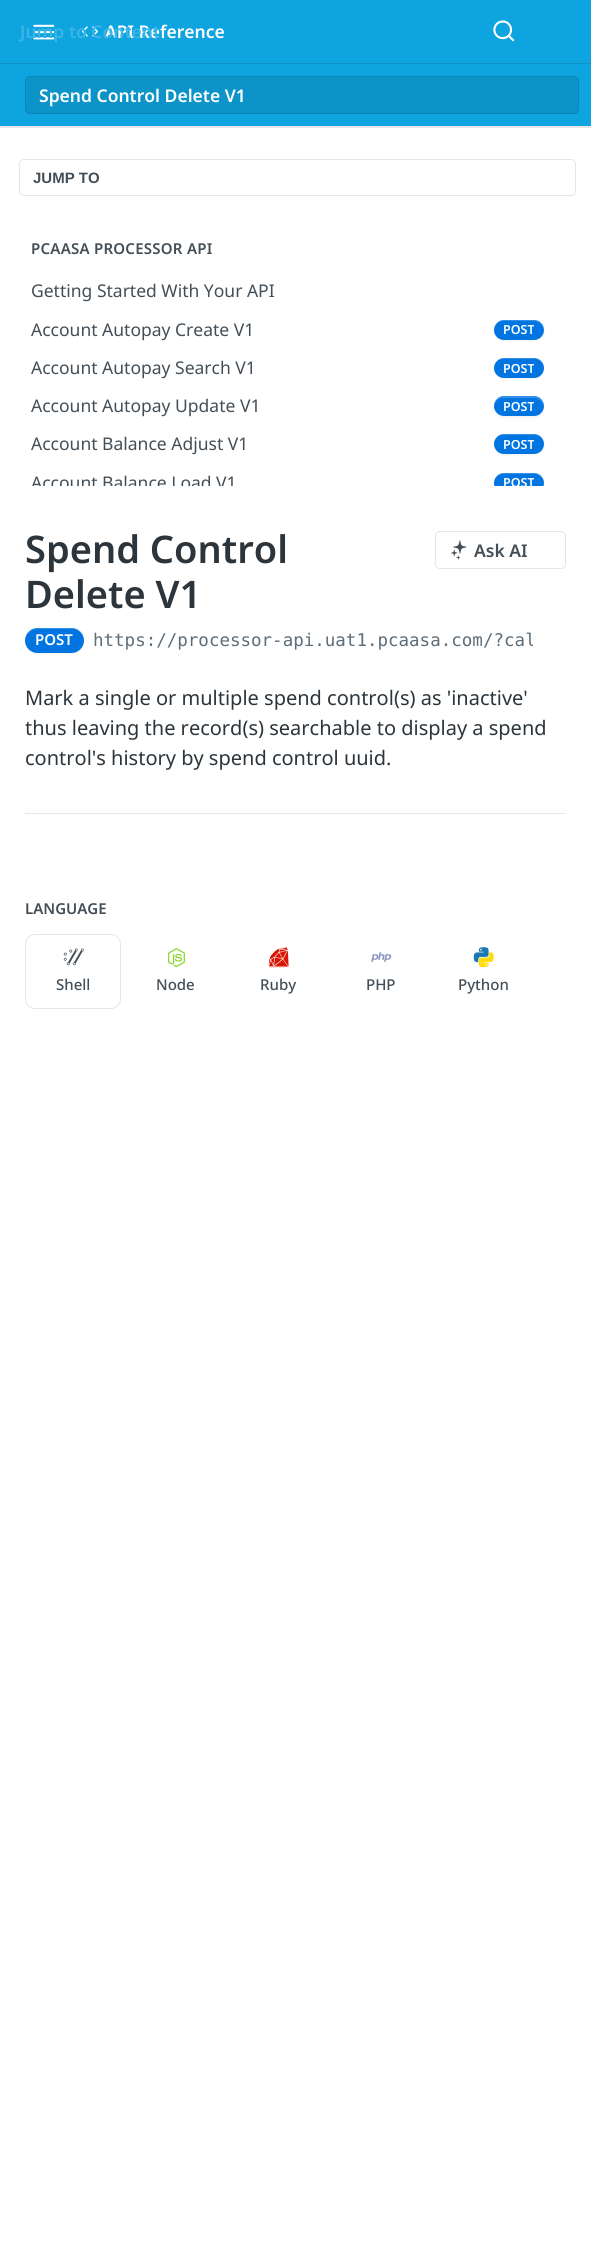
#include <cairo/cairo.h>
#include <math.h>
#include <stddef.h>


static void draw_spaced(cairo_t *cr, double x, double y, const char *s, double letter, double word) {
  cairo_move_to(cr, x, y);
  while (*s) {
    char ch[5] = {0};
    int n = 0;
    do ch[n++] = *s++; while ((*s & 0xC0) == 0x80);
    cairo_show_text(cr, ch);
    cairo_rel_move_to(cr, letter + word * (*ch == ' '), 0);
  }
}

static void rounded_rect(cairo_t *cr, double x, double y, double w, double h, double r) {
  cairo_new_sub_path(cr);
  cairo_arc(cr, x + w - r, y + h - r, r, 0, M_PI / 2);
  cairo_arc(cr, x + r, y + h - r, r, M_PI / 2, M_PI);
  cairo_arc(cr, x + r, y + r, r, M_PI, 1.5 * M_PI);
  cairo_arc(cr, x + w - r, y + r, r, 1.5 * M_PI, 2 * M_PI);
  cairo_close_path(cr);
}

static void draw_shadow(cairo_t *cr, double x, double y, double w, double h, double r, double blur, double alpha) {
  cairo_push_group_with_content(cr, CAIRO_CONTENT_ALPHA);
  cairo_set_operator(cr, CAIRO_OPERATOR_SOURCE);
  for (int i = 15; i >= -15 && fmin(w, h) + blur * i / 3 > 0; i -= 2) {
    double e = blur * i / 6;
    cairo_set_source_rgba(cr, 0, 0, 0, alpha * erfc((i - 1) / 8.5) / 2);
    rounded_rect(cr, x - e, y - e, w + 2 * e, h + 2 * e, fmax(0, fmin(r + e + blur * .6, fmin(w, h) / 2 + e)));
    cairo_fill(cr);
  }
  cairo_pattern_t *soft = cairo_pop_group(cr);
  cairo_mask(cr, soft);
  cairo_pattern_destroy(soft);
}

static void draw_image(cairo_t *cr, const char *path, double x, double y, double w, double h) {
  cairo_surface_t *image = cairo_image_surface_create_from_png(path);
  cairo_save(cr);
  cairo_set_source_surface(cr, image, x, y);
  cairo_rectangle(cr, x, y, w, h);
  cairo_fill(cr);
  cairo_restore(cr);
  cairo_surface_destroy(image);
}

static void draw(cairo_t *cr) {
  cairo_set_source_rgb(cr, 1, 1, 1);
  cairo_paint(cr);
  cairo_set_source_rgb(cr, 230 / 255.0, 230 / 255.0, 230 / 255.0);
  cairo_rectangle(cr, 0, 126, 591, 2);
  cairo_fill(cr);
  cairo_set_source_rgb(cr, 13 / 255.0, 164 / 255.0, 223 / 255.0);
  cairo_rectangle(cr, 0, 0, 591, 126);
  cairo_fill(cr);
  cairo_set_source_rgb(cr, 12 / 255.0, 148 / 255.0, 201 / 255.0);
  cairo_rectangle(cr, 0, 63, 591, 1);
  cairo_fill(cr);
  draw_image(cr, "images/1.png", 33, 24, 22, 16);
  draw_image(cr, "images/2.png", 82, 26, 16, 11);
  draw_image(cr, "images/3.png", 493, 20, 22, 22);
  rounded_rect(cr, 25, 76, 554, 38, 5);
  cairo_fill(cr);
  rounded_rect(cr, 25.5, 76.5, 553, 37, 4.5);
  cairo_set_source_rgba(cr, 0, 0, 0, 0.1);
  cairo_set_line_width(cr, 1);
  cairo_stroke(cr);
  rounded_rect(cr, 19.5, 159.5, 556, 36, 4.5);
  cairo_set_source_rgb(cr, 230 / 255.0, 230 / 255.0, 230 / 255.0);
  cairo_stroke(cr);
  cairo_set_source_rgb(cr, 0, 0, 0);
  draw_shadow(cr, 494, 321, 50, 20, 10, 1, 0.05);
  cairo_set_source_rgb(cr, 0, 116 / 255.0, 225 / 255.0);
  rounded_rect(cr, 494, 320, 50, 20, 10);
  cairo_fill(cr);
  cairo_set_source_rgba(cr, 1, 1, 1, 0.2);
  cairo_new_path(cr);
  cairo_move_to(cr, 504, 321);
  cairo_line_to(cr, 534, 321);
  cairo_curve_to(cr, 539, 321, 544, 326, 544, 331);
  cairo_curve_to(cr, 545, 317, 527, 320, 519, 320);
  cairo_curve_to(cr, 511, 320, 493, 317, 494, 331);
  cairo_curve_to(cr, 494, 326, 498, 321, 504, 321);
  cairo_close_path(cr);
  cairo_fill(cr);
  cairo_set_source_rgb(cr, 0, 0, 0);
  draw_shadow(cr, 494, 359, 50, 20, 10, 1, 0.05);
  cairo_set_source_rgb(cr, 0, 116 / 255.0, 225 / 255.0);
  rounded_rect(cr, 494, 358, 50, 20, 10);
  cairo_fill(cr);
  cairo_set_source_rgba(cr, 1, 1, 1, 0.2);
  cairo_new_path(cr);
  cairo_move_to(cr, 504, 359);
  cairo_line_to(cr, 534, 359);
  cairo_curve_to(cr, 539, 359, 544, 363, 544, 368);
  cairo_curve_to(cr, 545, 355, 527, 358, 519, 358);
  cairo_curve_to(cr, 511, 358, 493, 355, 494, 368);
  cairo_curve_to(cr, 494, 363, 498, 359, 504, 359);
  cairo_close_path(cr);
  cairo_fill(cr);
  cairo_set_source_rgb(cr, 0, 0, 0);
  draw_shadow(cr, 494, 398, 50, 20, 10, 1, 0.05);
  cairo_set_source_rgb(cr, 0, 116 / 255.0, 225 / 255.0);
  rounded_rect(cr, 494, 396, 50, 20, 10);
  cairo_fill(cr);
  cairo_set_source_rgba(cr, 1, 1, 1, 0.2);
  cairo_new_path(cr);
  cairo_move_to(cr, 504, 398);
  cairo_line_to(cr, 534, 398);
  cairo_curve_to(cr, 539, 398, 543, 402, 544, 407);
  cairo_curve_to(cr, 545, 393, 527, 396, 519, 396);
  cairo_curve_to(cr, 511, 396, 493, 393, 494, 407);
  cairo_curve_to(cr, 494, 402, 498, 398, 504, 398);
  cairo_close_path(cr);
  cairo_fill(cr);
  cairo_set_source_rgb(cr, 0, 0, 0);
  draw_shadow(cr, 494, 435, 50, 20, 10, 1, 0.05);
  cairo_set_source_rgb(cr, 0, 116 / 255.0, 225 / 255.0);
  rounded_rect(cr, 494, 434, 50, 20, 10);
  cairo_fill(cr);
  cairo_set_source_rgba(cr, 1, 1, 1, 0.2);
  cairo_new_path(cr);
  cairo_move_to(cr, 504, 435);
  cairo_line_to(cr, 534, 435);
  cairo_curve_to(cr, 539, 435, 544, 439, 544, 444);
  cairo_curve_to(cr, 545, 431, 527, 434, 519, 434);
  cairo_curve_to(cr, 511, 434, 493, 431, 494, 444);
  cairo_curve_to(cr, 494, 439, 498, 435, 504, 435);
  cairo_close_path(cr);
  cairo_fill(cr);
  cairo_save(cr);
  cairo_rectangle(cr, 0, 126, 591, 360);
  cairo_clip(cr);
  cairo_set_source_rgb(cr, 0, 0, 0);
  draw_shadow(cr, 494, 474, 50, 20, 10, 1, 0.05);
  cairo_restore(cr);
  cairo_save(cr);
  cairo_rectangle(cr, 0, 126, 591, 360);
  cairo_clip(cr);
  cairo_set_source_rgb(cr, 0, 116 / 255.0, 225 / 255.0);
  rounded_rect(cr, 494, 473, 50, 20, 10);
  cairo_fill(cr);
  cairo_restore(cr);
  cairo_new_path(cr);
  cairo_move_to(cr, 504, 474);
  cairo_line_to(cr, 534, 474);
  cairo_curve_to(cr, 539, 474, 544, 478, 544, 483);
  cairo_curve_to(cr, 545, 470, 527, 473, 519, 473);
  cairo_curve_to(cr, 511, 473, 493, 470, 494, 483);
  cairo_curve_to(cr, 494, 478, 498, 474, 504, 474);
  cairo_close_path(cr);
  cairo_fill(cr);
  cairo_set_source_rgb(cr, 230 / 255.0, 230 / 255.0, 230 / 255.0);
  cairo_rectangle(cr, 25, 813, 541, 1);
  cairo_fill(cr);
  rounded_rect(cr, 435.5, 531.5, 130, 37, 4.5);
  cairo_stroke(cr);
  draw_image(cr, "images/4.png", 451, 540, 16, 20);
  cairo_set_source_rgb(cr, 0, 0, 0);
  draw_shadow(cr, 25, 629, 59, 25, 12.5, 1, 0.05);
  cairo_set_source_rgb(cr, 0, 116 / 255.0, 225 / 255.0);
  rounded_rect(cr, 25, 628, 59, 25, 12.5);
  cairo_fill(cr);
  cairo_set_source_rgba(cr, 1, 1, 1, 0.2);
  cairo_new_path(cr);
  cairo_move_to(cr, 38, 629);
  cairo_line_to(cr, 71, 629);
  cairo_curve_to(cr, 78, 629, 84, 634, 84, 641);
  cairo_curve_to(cr, 84, 625, 65, 628, 54, 628);
  cairo_curve_to(cr, 44, 628, 25, 625, 25, 641);
  cairo_curve_to(cr, 25, 634, 31, 629, 38, 629);
  cairo_close_path(cr);
  cairo_fill(cr);
  rounded_rect(cr, 25.5, 934.5, 95, 74, 9.5);
  cairo_set_source_rgb(cr, 230 / 255.0, 230 / 255.0, 230 / 255.0);
  cairo_stroke(cr);
  draw_image(cr, "images/5.png", 63, 948, 21, 18);
  draw_image(cr, "images/6.png", 168, 948, 17, 20);
  draw_image(cr, "images/7.png", 268, 947, 21, 21);
  draw_image(cr, "images/8.png", 371, 952, 21, 10);
  draw_image(cr, "images/9.png", 473, 947, 16, 16);
  draw_image(cr, "images/10.png", 478, 952, 16, 16);
  cairo_select_font_face(cr, "Noto Sans SemiBold", CAIRO_FONT_SLANT_NORMAL, CAIRO_FONT_WEIGHT_NORMAL);
  cairo_set_font_size(cr, 17.5);
  cairo_set_source_rgb(cr, 1, 1, 1);
  cairo_move_to(cr, 105, 38);
  cairo_show_text(cr, "API Reference");
  cairo_set_source_rgb(cr, 58 / 255.0, 181 / 255.0, 229 / 255.0);
  cairo_move_to(cr, 20, 38);
  cairo_show_text(cr, "Jump to Content");
  cairo_set_source_rgb(cr, 1, 1, 1);
  cairo_move_to(cr, 39, 102);
  cairo_show_text(cr, "Spend Control Delete V1");
  cairo_select_font_face(cr, "Liberation Sans", CAIRO_FONT_SLANT_NORMAL, CAIRO_FONT_WEIGHT_BOLD);
  cairo_set_font_size(cr, 15);
  cairo_set_source_rgb(cr, 67 / 255.0, 78 / 255.0, 86 / 255.0);
  cairo_move_to(cr, 33, 183);
  cairo_show_text(cr, "JUMP TO");
  cairo_select_font_face(cr, "Noto Sans SemiBold", CAIRO_FONT_SLANT_NORMAL, CAIRO_FONT_WEIGHT_NORMAL);
  draw_spaced(cr, 31, 254, "PCAASA PROCESSOR API", 0.25, 0);
  cairo_select_font_face(cr, "Noto Sans", CAIRO_FONT_SLANT_NORMAL, CAIRO_FONT_WEIGHT_NORMAL);
  cairo_set_font_size(cr, 17.5);
  cairo_move_to(cr, 31, 297);
  cairo_show_text(cr, "Getting Started With Your API");
  cairo_move_to(cr, 31, 336);
  cairo_show_text(cr, "Account Autopay Create V1");
  cairo_select_font_face(cr, "Noto Sans SemiBold", CAIRO_FONT_SLANT_NORMAL, CAIRO_FONT_WEIGHT_NORMAL);
  cairo_set_font_size(cr, 12.5);
  cairo_set_source_rgb(cr, 1, 1, 1);
  cairo_move_to(cr, 503, 334);
  cairo_show_text(cr, "POST");
  cairo_select_font_face(cr, "Noto Sans", CAIRO_FONT_SLANT_NORMAL, CAIRO_FONT_WEIGHT_NORMAL);
  cairo_set_font_size(cr, 17.5);
  cairo_set_source_rgb(cr, 67 / 255.0, 78 / 255.0, 86 / 255.0);
  cairo_move_to(cr, 31, 374);
  cairo_show_text(cr, "Account Autopay Search V1");
  cairo_select_font_face(cr, "Noto Sans SemiBold", CAIRO_FONT_SLANT_NORMAL, CAIRO_FONT_WEIGHT_NORMAL);
  cairo_set_font_size(cr, 12.5);
  cairo_set_source_rgb(cr, 1, 1, 1);
  cairo_move_to(cr, 503, 373);
  cairo_show_text(cr, "POST");
  cairo_select_font_face(cr, "Noto Sans", CAIRO_FONT_SLANT_NORMAL, CAIRO_FONT_WEIGHT_NORMAL);
  cairo_set_font_size(cr, 17.5);
  cairo_set_source_rgb(cr, 67 / 255.0, 78 / 255.0, 86 / 255.0);
  cairo_move_to(cr, 31, 412);
  cairo_show_text(cr, "Account Autopay Update V1");
  cairo_select_font_face(cr, "Noto Sans SemiBold", CAIRO_FONT_SLANT_NORMAL, CAIRO_FONT_WEIGHT_NORMAL);
  cairo_set_font_size(cr, 12.5);
  cairo_set_source_rgb(cr, 1, 1, 1);
  cairo_move_to(cr, 503, 411);
  cairo_show_text(cr, "POST");
  cairo_select_font_face(cr, "Noto Sans", CAIRO_FONT_SLANT_NORMAL, CAIRO_FONT_WEIGHT_NORMAL);
  cairo_set_font_size(cr, 17.5);
  cairo_set_source_rgb(cr, 67 / 255.0, 78 / 255.0, 86 / 255.0);
  cairo_move_to(cr, 31, 450);
  cairo_show_text(cr, "Account Balance Adjust V1");
  cairo_select_font_face(cr, "Noto Sans SemiBold", CAIRO_FONT_SLANT_NORMAL, CAIRO_FONT_WEIGHT_NORMAL);
  cairo_set_font_size(cr, 12.5);
  cairo_set_source_rgb(cr, 1, 1, 1);
  cairo_move_to(cr, 503, 449);
  cairo_show_text(cr, "POST");
  cairo_save(cr);
  cairo_rectangle(cr, 0, 126, 591, 360);
  cairo_clip(cr);
  cairo_select_font_face(cr, "Noto Sans", CAIRO_FONT_SLANT_NORMAL, CAIRO_FONT_WEIGHT_NORMAL);
  cairo_set_font_size(cr, 17.5);
  cairo_set_source_rgb(cr, 67 / 255.0, 78 / 255.0, 86 / 255.0);
  cairo_move_to(cr, 31, 489);
  cairo_show_text(cr, "Account Balance Load V1");
  cairo_select_font_face(cr, "Noto Sans SemiBold", CAIRO_FONT_SLANT_NORMAL, CAIRO_FONT_WEIGHT_NORMAL);
  cairo_set_font_size(cr, 12.5);
  cairo_set_source_rgb(cr, 1, 1, 1);
  cairo_move_to(cr, 503, 487);
  cairo_show_text(cr, "POST");
  cairo_restore(cr);
  cairo_set_font_size(cr, 38);
  cairo_set_source_rgb(cr, 43 / 255.0, 53 / 255.0, 59 / 255.0);
  cairo_move_to(cr, 25, 563);
  cairo_show_text(cr, "Spend Control");
  cairo_move_to(cr, 25, 608);
  cairo_show_text(cr, "Delete V1");
  cairo_set_font_size(cr, 17.5);
  cairo_set_source_rgb(cr, 67 / 255.0, 78 / 255.0, 86 / 255.0);
  cairo_move_to(cr, 474, 557);
  cairo_show_text(cr, "Ask AI");
  cairo_set_font_size(cr, 15);
  cairo_set_source_rgb(cr, 1, 1, 1);
  cairo_move_to(cr, 35, 645);
  cairo_show_text(cr, "POST");
  cairo_select_font_face(cr, "DejaVu Sans Mono", CAIRO_FONT_SLANT_NORMAL, CAIRO_FONT_WEIGHT_NORMAL);
  cairo_set_font_size(cr, 17.5);
  cairo_set_source_rgb(cr, 93 / 255.0, 109 / 255.0, 121 / 255.0);
  cairo_move_to(cr, 93, 646);
  cairo_show_text(cr, "https://processor-api.uat1.pcaasa.com");
  cairo_save(cr);
  cairo_rectangle(cr, 94, 628, 439, 25);
  cairo_clip(cr);
  cairo_move_to(cr, 483, 646);
  cairo_show_text(cr, "/?cal");
  cairo_restore(cr);
  cairo_select_font_face(cr, "Noto Sans", CAIRO_FONT_SLANT_NORMAL, CAIRO_FONT_WEIGHT_NORMAL);
  cairo_set_font_size(cr, 20);
  cairo_set_source_rgb(cr, 43 / 255.0, 53 / 255.0, 59 / 255.0);
  cairo_move_to(cr, 25, 705);
  cairo_show_text(cr, "Mark a single or multiple spend control(s) as 'inactive'");
  cairo_move_to(cr, 25, 735);
  cairo_show_text(cr, "thus leaving the record(s) searchable to display a spend");
  cairo_move_to(cr, 25, 765);
  cairo_show_text(cr, "control's history by spend control uuid.");
  cairo_select_font_face(cr, "Noto Sans SemiBold", CAIRO_FONT_SLANT_NORMAL, CAIRO_FONT_WEIGHT_NORMAL);
  cairo_set_font_size(cr, 15);
  cairo_set_source_rgb(cr, 67 / 255.0, 78 / 255.0, 86 / 255.0);
  cairo_move_to(cr, 25, 914);
  cairo_show_text(cr, "LANGUAGE");
  cairo_select_font_face(cr, "Noto Sans Medium", CAIRO_FONT_SLANT_NORMAL, CAIRO_FONT_WEIGHT_NORMAL);
  cairo_move_to(cr, 56, 990);
  cairo_show_text(cr, "Shell");
  cairo_move_to(cr, 156, 990);
  cairo_show_text(cr, "Node");
  cairo_move_to(cr, 260, 990);
  cairo_show_text(cr, "Ruby");
  cairo_move_to(cr, 366, 990);
  cairo_show_text(cr, "PHP");
  cairo_move_to(cr, 458, 990);
  cairo_show_text(cr, "Python");
}

int main(void) {
  cairo_surface_t *surface = cairo_image_surface_create(CAIRO_FORMAT_RGB24, 591, 2267);
  cairo_t *cr = cairo_create(surface);
  cairo_font_options_t *options = cairo_font_options_create();
  cairo_font_options_set_hint_metrics(options, CAIRO_HINT_METRICS_OFF);
  cairo_font_options_set_hint_style(options, CAIRO_HINT_STYLE_NONE);
  cairo_set_font_options(cr, options);
  cairo_set_miter_limit(cr, 4);
  draw(cr);
  cairo_surface_write_to_png(surface, "out.png");
  cairo_font_options_destroy(options);
  cairo_destroy(cr);
  cairo_surface_destroy(surface);
  return 0;
}
